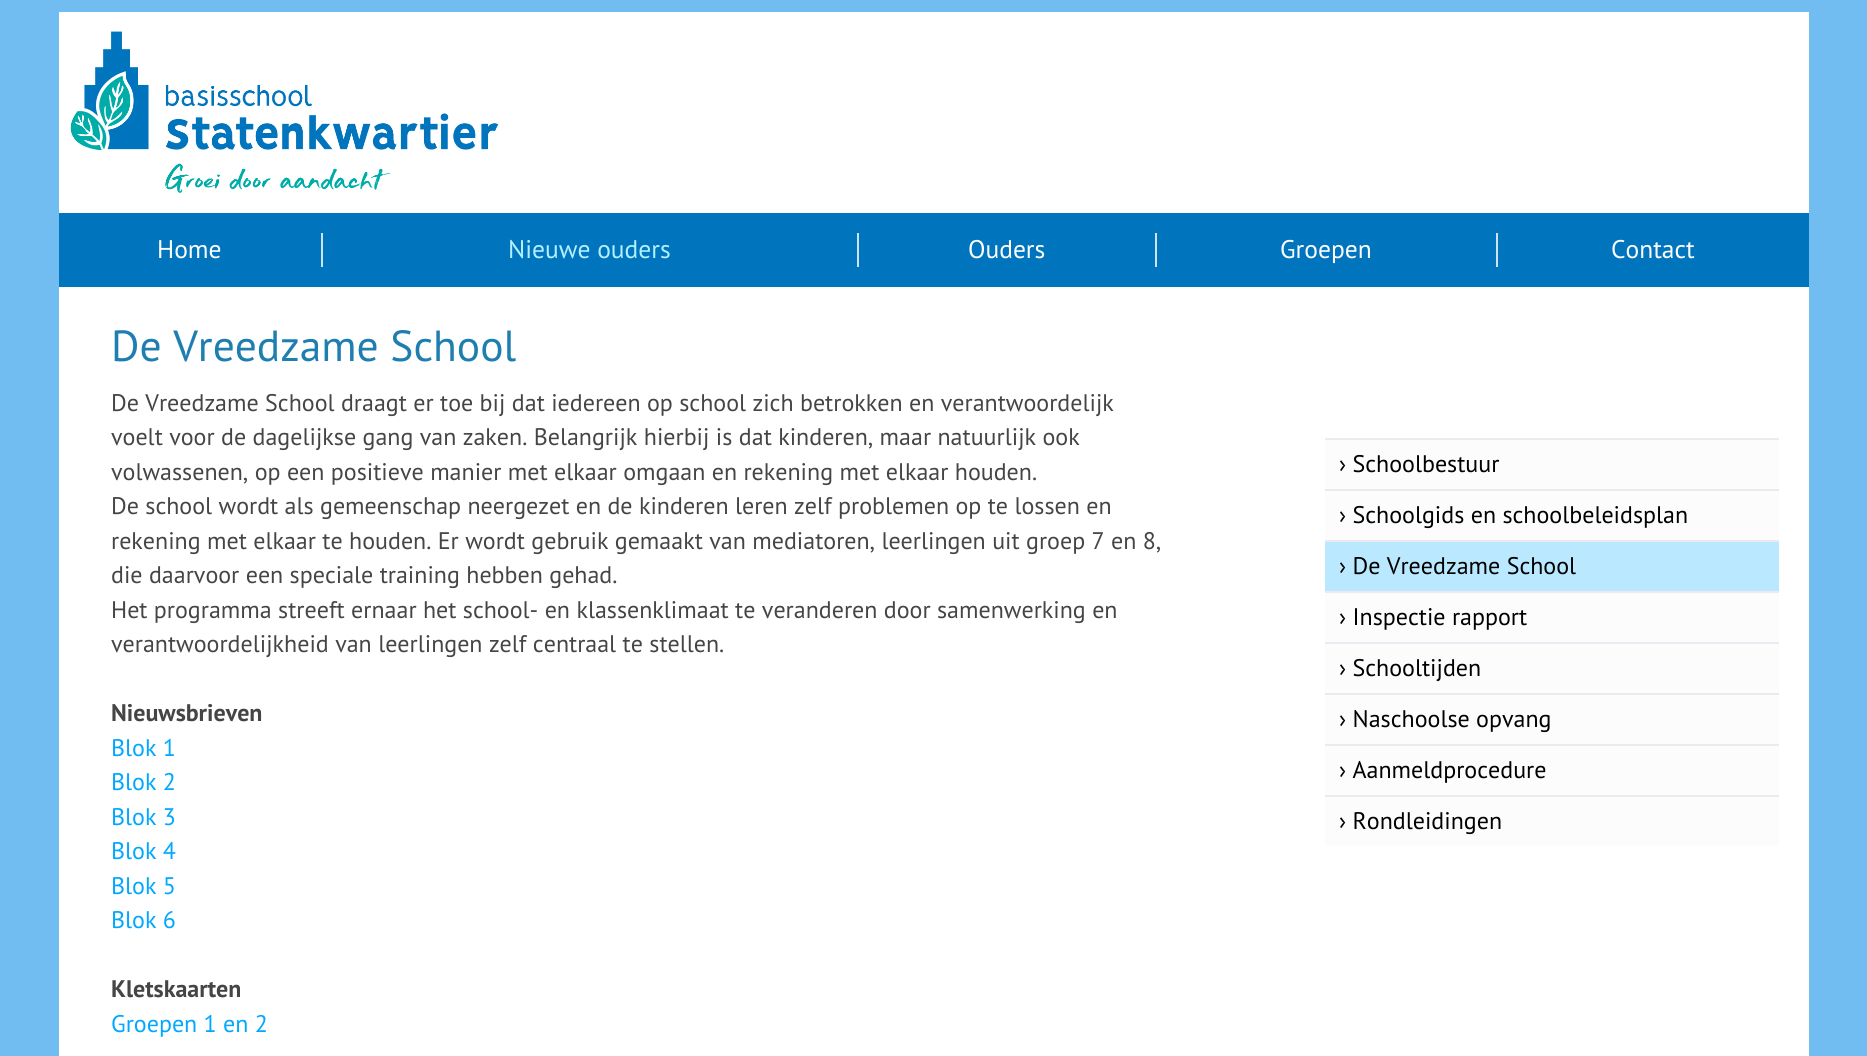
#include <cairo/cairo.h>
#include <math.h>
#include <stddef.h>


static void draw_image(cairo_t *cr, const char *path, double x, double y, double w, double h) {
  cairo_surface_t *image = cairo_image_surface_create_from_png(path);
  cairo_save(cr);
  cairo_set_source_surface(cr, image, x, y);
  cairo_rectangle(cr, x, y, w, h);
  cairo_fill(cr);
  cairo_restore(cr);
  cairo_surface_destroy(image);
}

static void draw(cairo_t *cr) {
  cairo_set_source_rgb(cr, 113 / 255.0, 188 / 255.0, 240 / 255.0);
  cairo_paint(cr);
  cairo_set_source_rgb(cr, 1, 1, 1);
  cairo_rectangle(cr, 59, 12, 1750, 201);
  cairo_fill(cr);
  draw_image(cr, "images/1.png", 70, 31, 429, 162);
  cairo_set_source_rgb(cr, 0, 117 / 255.0, 190 / 255.0);
  cairo_rectangle(cr, 59, 213, 1750, 74);
  cairo_fill(cr);
  cairo_set_source_rgb(cr, 204 / 255.0, 228 / 255.0, 245 / 255.0);
  cairo_rectangle(cr, 321, 233, 2, 34);
  cairo_fill(cr);
  cairo_rectangle(cr, 857, 233, 2, 34);
  cairo_fill(cr);
  cairo_rectangle(cr, 1155, 233, 2, 34);
  cairo_fill(cr);
  cairo_rectangle(cr, 1496, 233, 2, 34);
  cairo_fill(cr);
  cairo_set_source_rgb(cr, 1, 1, 1);
  cairo_rectangle(cr, 59, 287, 1750, 769);
  cairo_fill(cr);
  cairo_set_source_rgb(cr, 252 / 255.0, 252 / 255.0, 252 / 255.0);
  cairo_rectangle(cr, 1325, 440, 454, 49);
  cairo_fill(cr);
  cairo_set_source_rgb(cr, 237 / 255.0, 233 / 255.0, 241 / 255.0);
  cairo_rectangle(cr, 1325, 438, 454, 2);
  cairo_fill(cr);
  cairo_set_source_rgb(cr, 252 / 255.0, 252 / 255.0, 252 / 255.0);
  cairo_rectangle(cr, 1325, 491, 454, 49);
  cairo_fill(cr);
  cairo_set_source_rgb(cr, 237 / 255.0, 233 / 255.0, 241 / 255.0);
  cairo_rectangle(cr, 1325, 489, 454, 2);
  cairo_fill(cr);
  cairo_set_source_rgb(cr, 186 / 255.0, 233 / 255.0, 1);
  cairo_rectangle(cr, 1325, 542, 454, 49);
  cairo_fill(cr);
  cairo_set_source_rgb(cr, 237 / 255.0, 233 / 255.0, 241 / 255.0);
  cairo_rectangle(cr, 1325, 540, 454, 2);
  cairo_fill(cr);
  cairo_set_source_rgb(cr, 252 / 255.0, 252 / 255.0, 252 / 255.0);
  cairo_rectangle(cr, 1325, 593, 454, 49);
  cairo_fill(cr);
  cairo_set_source_rgb(cr, 237 / 255.0, 233 / 255.0, 241 / 255.0);
  cairo_rectangle(cr, 1325, 591, 454, 2);
  cairo_fill(cr);
  cairo_set_source_rgb(cr, 252 / 255.0, 252 / 255.0, 252 / 255.0);
  cairo_rectangle(cr, 1325, 644, 454, 49);
  cairo_fill(cr);
  cairo_set_source_rgb(cr, 237 / 255.0, 233 / 255.0, 241 / 255.0);
  cairo_rectangle(cr, 1325, 642, 454, 2);
  cairo_fill(cr);
  cairo_set_source_rgb(cr, 252 / 255.0, 252 / 255.0, 252 / 255.0);
  cairo_rectangle(cr, 1325, 695, 454, 49);
  cairo_fill(cr);
  cairo_set_source_rgb(cr, 237 / 255.0, 233 / 255.0, 241 / 255.0);
  cairo_rectangle(cr, 1325, 693, 454, 2);
  cairo_fill(cr);
  cairo_set_source_rgb(cr, 252 / 255.0, 252 / 255.0, 252 / 255.0);
  cairo_rectangle(cr, 1325, 746, 454, 49);
  cairo_fill(cr);
  cairo_set_source_rgb(cr, 237 / 255.0, 233 / 255.0, 241 / 255.0);
  cairo_rectangle(cr, 1325, 744, 454, 2);
  cairo_fill(cr);
  cairo_set_source_rgb(cr, 252 / 255.0, 252 / 255.0, 252 / 255.0);
  cairo_rectangle(cr, 1325, 797, 454, 49);
  cairo_fill(cr);
  cairo_set_source_rgb(cr, 237 / 255.0, 233 / 255.0, 241 / 255.0);
  cairo_rectangle(cr, 1325, 795, 454, 2);
  cairo_fill(cr);
  cairo_select_font_face(cr, "PT Sans", CAIRO_FONT_SLANT_NORMAL, CAIRO_FONT_WEIGHT_NORMAL);
  cairo_set_font_size(cr, 25.5);
  cairo_set_source_rgb(cr, 1, 1, 1);
  cairo_move_to(cr, 157, 258);
  cairo_show_text(cr, "Home");
  cairo_set_source_rgb(cr, 178 / 255.0, 240 / 255.0, 1);
  cairo_move_to(cr, 508, 258);
  cairo_show_text(cr, "Nieuwe ouders");
  cairo_set_source_rgb(cr, 1, 1, 1);
  cairo_move_to(cr, 968, 258);
  cairo_show_text(cr, "Ouders");
  cairo_move_to(cr, 1280, 258);
  cairo_show_text(cr, "Groepen");
  cairo_move_to(cr, 1611, 258);
  cairo_show_text(cr, "Contact");
  cairo_set_font_size(cr, 43.5);
  cairo_set_source_rgb(cr, 30 / 255.0, 126 / 255.0, 176 / 255.0);
  cairo_move_to(cr, 111, 361);
  cairo_show_text(cr, "De Vreedzame School");
  cairo_set_font_size(cr, 24);
  cairo_set_source_rgb(cr, 69 / 255.0, 69 / 255.0, 69 / 255.0);
  cairo_move_to(cr, 111, 411);
  cairo_show_text(cr, "De Vreedzame School draagt er toe bij dat iedereen op school zich betrokken en verantwoordelijk");
  cairo_move_to(cr, 111, 445);
  cairo_show_text(cr, "voelt voor de dagelijkse gang van zaken. Belangrijk hierbij is dat kinderen, maar natuurlijk ook");
  cairo_move_to(cr, 111, 480);
  cairo_show_text(cr, "volwassenen, op een positieve manier met elkaar omgaan en rekening met elkaar houden.");
  cairo_move_to(cr, 111, 514);
  cairo_show_text(cr, "De school wordt als gemeenschap neergezet en de kinderen leren zelf problemen op te lossen en");
  cairo_move_to(cr, 111, 549);
  cairo_show_text(cr, "rekening met elkaar te houden. Er wordt gebruik gemaakt van mediatoren, leerlingen uit groep 7 en 8,");
  cairo_move_to(cr, 111, 583);
  cairo_show_text(cr, "die daarvoor een speciale training hebben gehad.");
  cairo_move_to(cr, 111, 618);
  cairo_show_text(cr, "Het programma streeft ernaar het school- en klassenklimaat te veranderen door samenwerking en");
  cairo_move_to(cr, 111, 652);
  cairo_show_text(cr, "verantwoordelijkheid van leerlingen zelf centraal te stellen.");
  cairo_select_font_face(cr, "PT Sans", CAIRO_FONT_SLANT_NORMAL, CAIRO_FONT_WEIGHT_BOLD);
  cairo_move_to(cr, 111, 721);
  cairo_show_text(cr, "Nieuwsbrieven");
  cairo_select_font_face(cr, "PT Sans", CAIRO_FONT_SLANT_NORMAL, CAIRO_FONT_WEIGHT_NORMAL);
  cairo_set_source_rgb(cr, 0, 168 / 255.0, 1);
  cairo_move_to(cr, 111, 756);
  cairo_show_text(cr, "Blok 1");
  cairo_move_to(cr, 111, 790);
  cairo_show_text(cr, "Blok 2");
  cairo_move_to(cr, 111, 825);
  cairo_show_text(cr, "Blok 3");
  cairo_move_to(cr, 111, 859);
  cairo_show_text(cr, "Blok 4");
  cairo_move_to(cr, 111, 894);
  cairo_show_text(cr, "Blok 5");
  cairo_move_to(cr, 111, 928);
  cairo_show_text(cr, "Blok 6");
  cairo_select_font_face(cr, "PT Sans", CAIRO_FONT_SLANT_NORMAL, CAIRO_FONT_WEIGHT_BOLD);
  cairo_set_source_rgb(cr, 69 / 255.0, 69 / 255.0, 69 / 255.0);
  cairo_move_to(cr, 111, 997);
  cairo_show_text(cr, "Kletskaarten");
  cairo_select_font_face(cr, "PT Sans", CAIRO_FONT_SLANT_NORMAL, CAIRO_FONT_WEIGHT_NORMAL);
  cairo_set_source_rgb(cr, 0, 168 / 255.0, 1);
  cairo_move_to(cr, 111, 1032);
  cairo_show_text(cr, "Groepen 1 en 2");
  cairo_set_source_rgb(cr, 0, 0, 0);
  cairo_move_to(cr, 1339, 472);
  cairo_show_text(cr, "› Schoolbestuur");
  cairo_move_to(cr, 1339, 523);
  cairo_show_text(cr, "› Schoolgids en schoolbeleidsplan");
  cairo_move_to(cr, 1339, 574);
  cairo_show_text(cr, "› De Vreedzame School");
  cairo_move_to(cr, 1339, 625);
  cairo_show_text(cr, "› Inspectie rapport");
  cairo_move_to(cr, 1339, 676);
  cairo_show_text(cr, "› Schooltijden");
  cairo_move_to(cr, 1339, 727);
  cairo_show_text(cr, "› Naschoolse opvang");
  cairo_move_to(cr, 1339, 778);
  cairo_show_text(cr, "› Aanmeldprocedure");
  cairo_move_to(cr, 1339, 829);
  cairo_show_text(cr, "› Rondleidingen");
}

int main(void) {
  cairo_surface_t *surface = cairo_image_surface_create(CAIRO_FORMAT_RGB24, 1867, 1056);
  cairo_t *cr = cairo_create(surface);
  cairo_font_options_t *options = cairo_font_options_create();
  cairo_font_options_set_hint_metrics(options, CAIRO_HINT_METRICS_OFF);
  cairo_font_options_set_hint_style(options, CAIRO_HINT_STYLE_NONE);
  cairo_set_font_options(cr, options);
  cairo_set_miter_limit(cr, 4);
  draw(cr);
  cairo_surface_write_to_png(surface, "out.png");
  cairo_font_options_destroy(options);
  cairo_destroy(cr);
  cairo_surface_destroy(surface);
  return 0;
}
